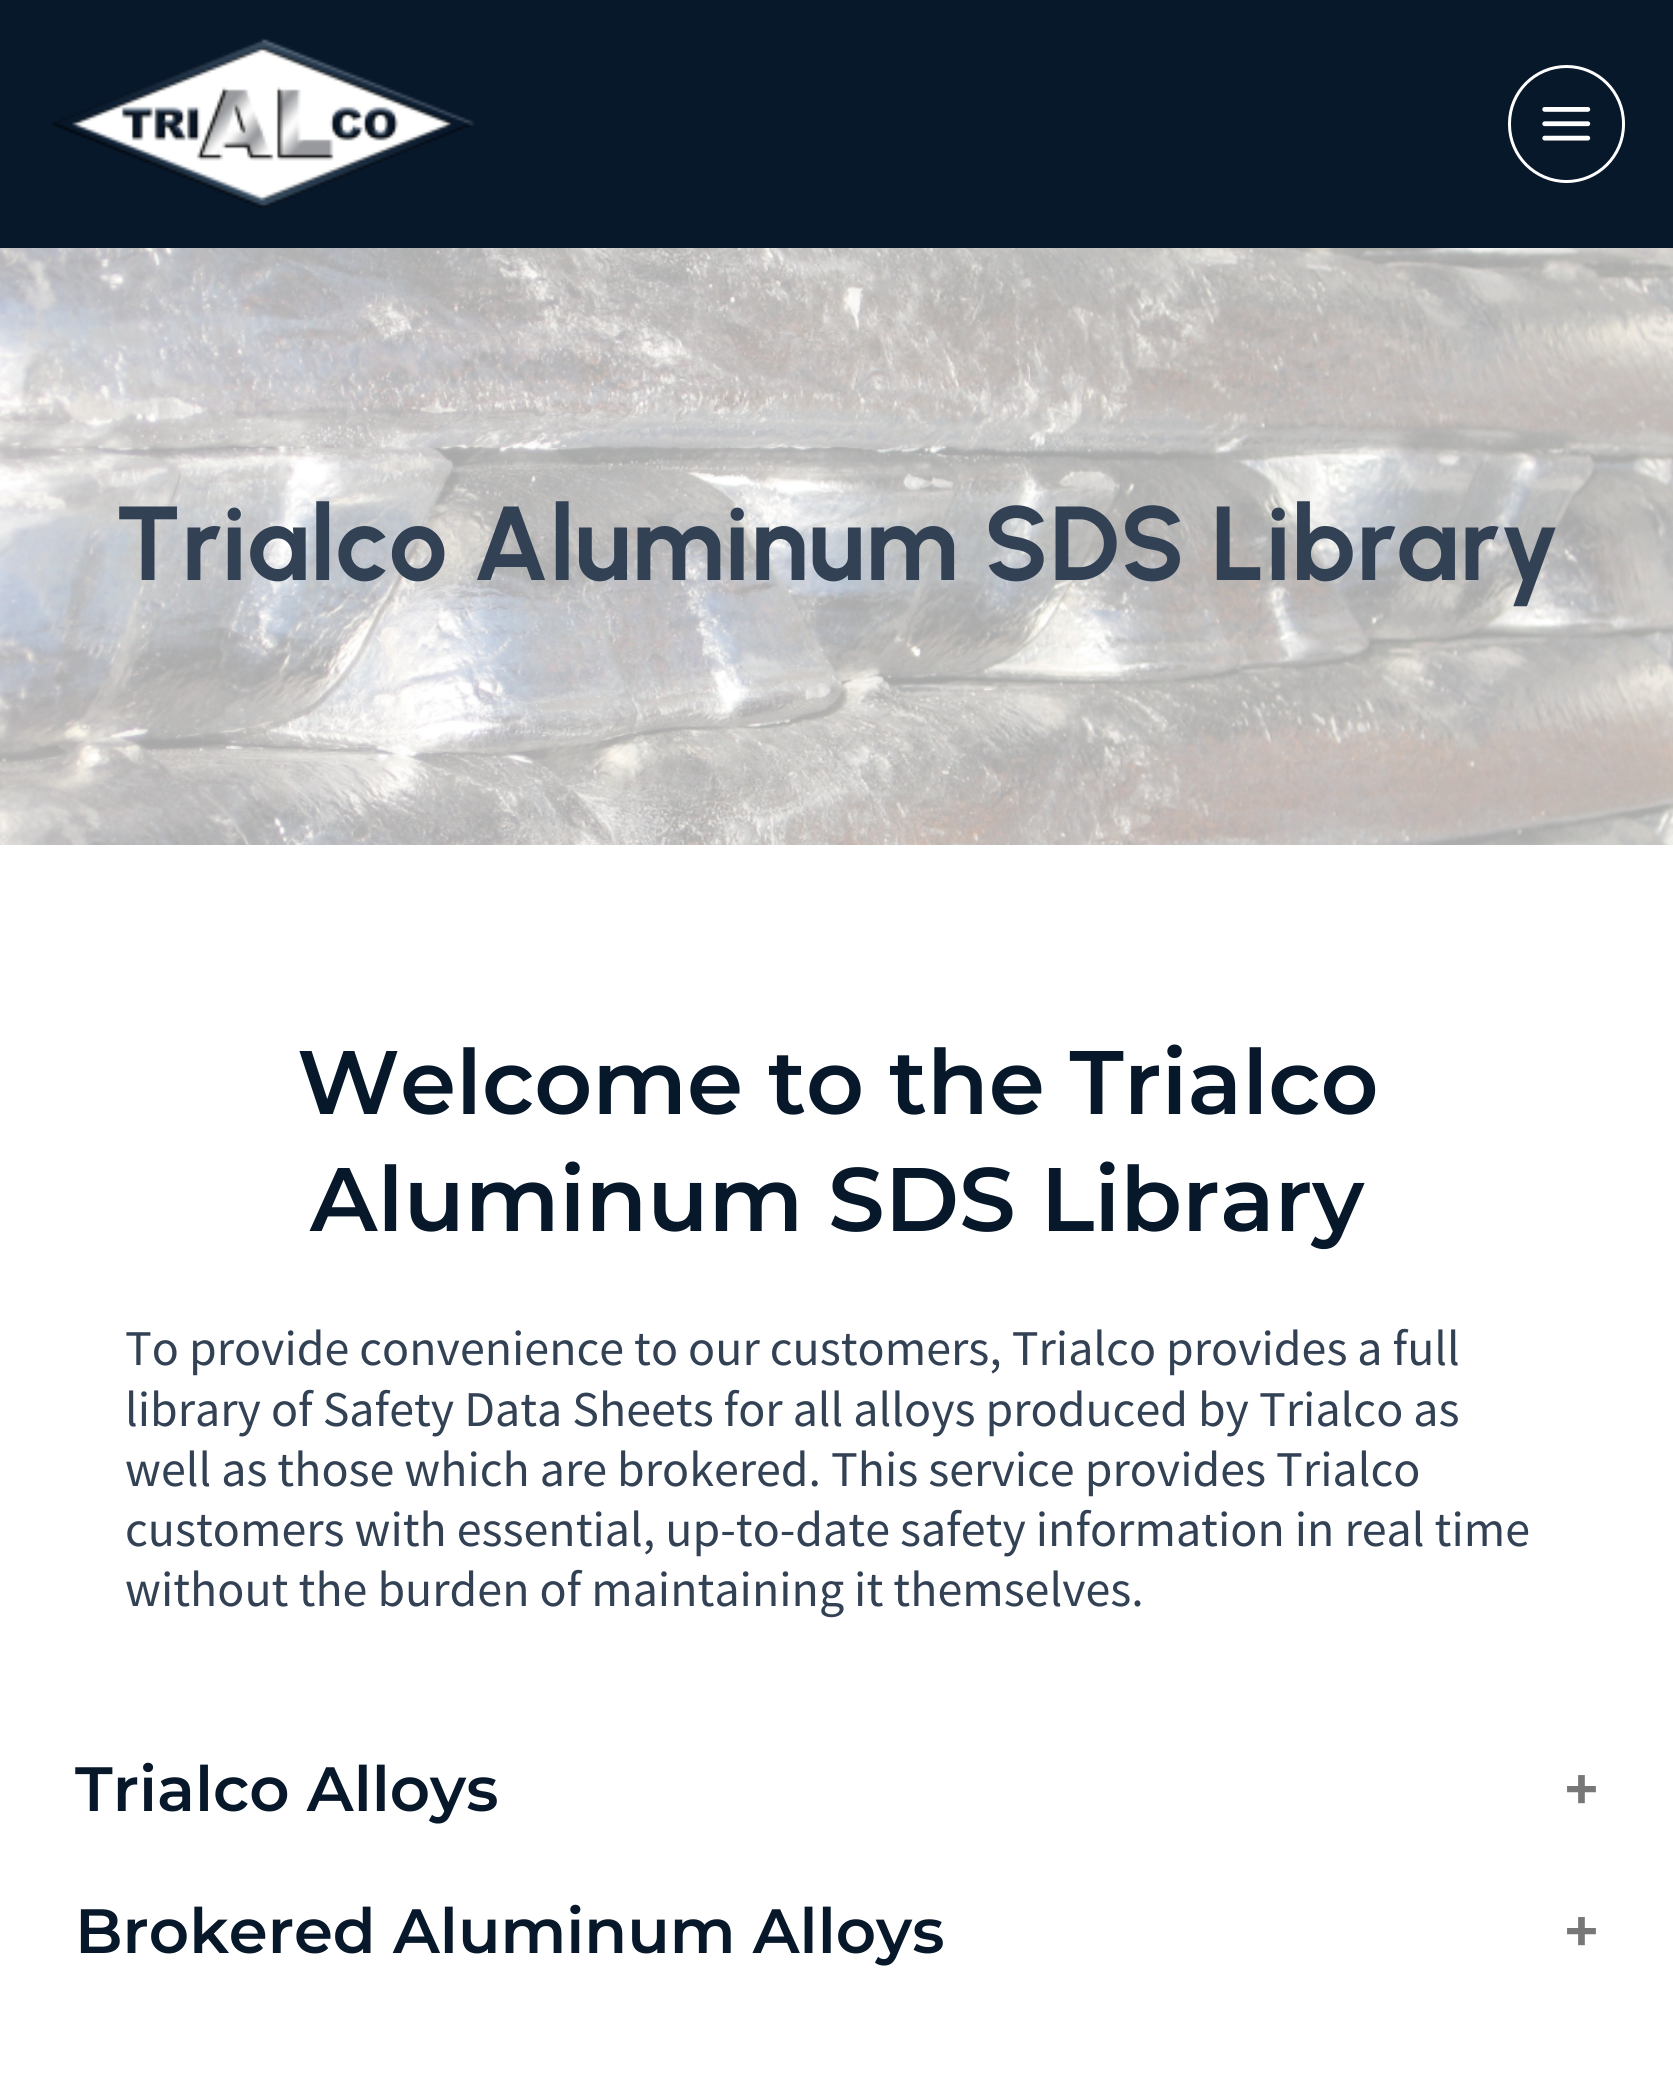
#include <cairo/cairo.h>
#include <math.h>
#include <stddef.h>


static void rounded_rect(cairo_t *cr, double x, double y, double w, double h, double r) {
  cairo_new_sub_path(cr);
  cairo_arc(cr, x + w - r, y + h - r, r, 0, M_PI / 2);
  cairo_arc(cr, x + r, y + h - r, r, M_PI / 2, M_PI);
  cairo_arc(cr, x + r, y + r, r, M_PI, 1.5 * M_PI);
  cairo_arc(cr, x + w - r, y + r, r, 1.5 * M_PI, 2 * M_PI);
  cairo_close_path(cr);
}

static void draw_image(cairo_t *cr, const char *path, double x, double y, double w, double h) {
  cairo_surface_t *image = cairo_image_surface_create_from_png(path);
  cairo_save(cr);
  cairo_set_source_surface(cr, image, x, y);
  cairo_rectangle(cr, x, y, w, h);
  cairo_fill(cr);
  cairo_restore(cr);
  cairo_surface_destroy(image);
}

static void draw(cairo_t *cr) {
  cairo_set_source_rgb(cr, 1, 1, 1);
  cairo_paint(cr);
  cairo_set_source_rgb(cr, 8 / 255.0, 24 / 255.0, 43 / 255.0);
  cairo_rectangle(cr, 0, 0, 1673, 248);
  cairo_fill(cr);
  draw_image(cr, "images/1.png", 52, 38, 423, 170);
  rounded_rect(cr, 1509.5, 66.5, 114, 115, 57);
  cairo_set_source_rgb(cr, 1, 1, 1);
  cairo_set_line_width(cr, 3);
  cairo_stroke(cr);
  draw_image(cr, "images/2.png", 1542, 107, 49, 34);
  draw_image(cr, "images/3.png", 0, 248, 1673, 597);
  cairo_select_font_face(cr, "Urbanist", CAIRO_FONT_SLANT_NORMAL, CAIRO_FONT_WEIGHT_BOLD);
  cairo_set_font_size(cr, 105);
  cairo_set_source_rgb(cr, 51 / 255.0, 65 / 255.0, 85 / 255.0);
  cairo_move_to(cr, 115, 580);
  cairo_show_text(cr, "Trialco Aluminum SDS Library");
  cairo_select_font_face(cr, "Montserrat SemiBold", CAIRO_FONT_SLANT_NORMAL, CAIRO_FONT_WEIGHT_NORMAL);
  cairo_set_font_size(cr, 90);
  cairo_set_source_rgb(cr, 8 / 255.0, 24 / 255.0, 43 / 255.0);
  cairo_move_to(cr, 297, 1114);
  cairo_show_text(cr, "Welcome to the Trialco");
  cairo_move_to(cr, 310, 1231);
  cairo_show_text(cr, "Aluminum SDS Library");
  cairo_select_font_face(cr, "Source Sans Pro", CAIRO_FONT_SLANT_NORMAL, CAIRO_FONT_WEIGHT_NORMAL);
  cairo_set_font_size(cr, 50);
  cairo_set_source_rgb(cr, 51 / 255.0, 65 / 255.0, 85 / 255.0);
  cairo_move_to(cr, 125, 1365);
  cairo_show_text(cr, "To provide convenience to our customers, Trialco provides a full");
  cairo_move_to(cr, 125, 1426);
  cairo_show_text(cr, "library of Safety Data Sheets for all alloys produced by Trialco as");
  cairo_move_to(cr, 125, 1486);
  cairo_show_text(cr, "well as those which are brokered. This service provides Trialco");
  cairo_move_to(cr, 125, 1546);
  cairo_show_text(cr, "customers with essential, up-to-date safety information in real time");
  cairo_move_to(cr, 125, 1606);
  cairo_show_text(cr, "without the burden of maintaining it themselves.");
  cairo_select_font_face(cr, "Montserrat SemiBold", CAIRO_FONT_SLANT_NORMAL, CAIRO_FONT_WEIGHT_NORMAL);
  cairo_set_font_size(cr, 62.5);
  cairo_set_source_rgb(cr, 8 / 255.0, 24 / 255.0, 43 / 255.0);
  cairo_move_to(cr, 75, 1811);
  cairo_show_text(cr, "Trialco Alloys");
  cairo_set_source_rgb(cr, 119 / 255.0, 119 / 255.0, 119 / 255.0);
  cairo_move_to(cr, 1563, 1811);
  cairo_show_text(cr, "+");
  cairo_set_source_rgb(cr, 8 / 255.0, 24 / 255.0, 43 / 255.0);
  cairo_move_to(cr, 75, 1953);
  cairo_show_text(cr, "Brokered Aluminum Alloys");
  cairo_set_source_rgb(cr, 119 / 255.0, 119 / 255.0, 119 / 255.0);
  cairo_move_to(cr, 1563, 1953);
  cairo_show_text(cr, "+");
}

int main(void) {
  cairo_surface_t *surface = cairo_image_surface_create(CAIRO_FORMAT_RGB24, 1673, 2097);
  cairo_t *cr = cairo_create(surface);
  cairo_font_options_t *options = cairo_font_options_create();
  cairo_font_options_set_hint_metrics(options, CAIRO_HINT_METRICS_OFF);
  cairo_font_options_set_hint_style(options, CAIRO_HINT_STYLE_NONE);
  cairo_set_font_options(cr, options);
  cairo_set_miter_limit(cr, 4);
  draw(cr);
  cairo_surface_write_to_png(surface, "out.png");
  cairo_font_options_destroy(options);
  cairo_destroy(cr);
  cairo_surface_destroy(surface);
  return 0;
}
